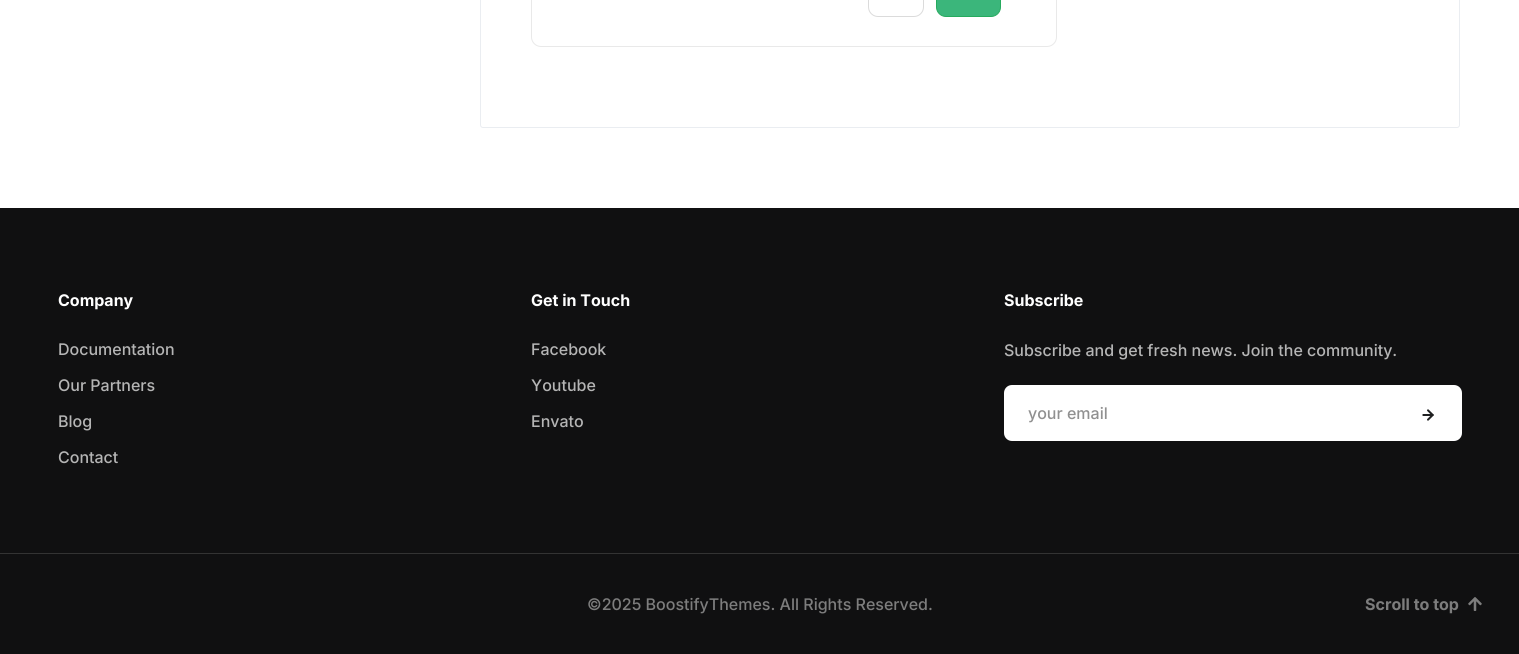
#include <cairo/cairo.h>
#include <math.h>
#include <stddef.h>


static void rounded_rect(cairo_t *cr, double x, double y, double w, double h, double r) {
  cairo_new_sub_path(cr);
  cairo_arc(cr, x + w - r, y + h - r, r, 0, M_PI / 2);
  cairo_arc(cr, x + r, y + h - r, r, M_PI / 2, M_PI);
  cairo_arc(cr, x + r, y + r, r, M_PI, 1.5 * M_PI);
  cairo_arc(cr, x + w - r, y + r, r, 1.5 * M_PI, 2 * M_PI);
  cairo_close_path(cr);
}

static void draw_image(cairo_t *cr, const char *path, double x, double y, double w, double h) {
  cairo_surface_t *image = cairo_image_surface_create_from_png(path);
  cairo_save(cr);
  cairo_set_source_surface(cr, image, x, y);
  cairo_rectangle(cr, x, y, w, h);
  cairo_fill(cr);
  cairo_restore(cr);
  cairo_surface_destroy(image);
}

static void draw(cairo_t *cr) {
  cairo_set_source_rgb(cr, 1, 1, 1);
  cairo_paint(cr);
  rounded_rect(cr, 480.5, -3.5, 979, 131, 2.5);
  cairo_set_source_rgba(cr, 226 / 255.0, 230 / 255.0, 235 / 255.0, 0.7);
  cairo_set_line_width(cr, 1);
  cairo_stroke(cr);
  rounded_rect(cr, 531.5, -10.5, 525, 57, 9.5);
  cairo_set_source_rgb(cr, 233 / 255.0, 233 / 255.0, 233 / 255.0);
  cairo_stroke(cr);
  rounded_rect(cr, 868.5, -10.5, 55, 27, 9.5);
  cairo_set_source_rgb(cr, 219 / 255.0, 219 / 255.0, 219 / 255.0);
  cairo_stroke(cr);
  cairo_set_source_rgb(cr, 59 / 255.0, 182 / 255.0, 123 / 255.0);
  rounded_rect(cr, 936.5, -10.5, 64, 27, 9.5);
  cairo_fill_preserve(cr);
  cairo_set_source_rgb(cr, 38 / 255.0, 170 / 255.0, 94 / 255.0);
  cairo_stroke(cr);
  cairo_set_source_rgb(cr, 16 / 255.0, 16 / 255.0, 17 / 255.0);
  cairo_rectangle(cr, 0, 208, 1519, 446);
  cairo_fill(cr);
  cairo_set_source_rgb(cr, 1, 1, 1);
  rounded_rect(cr, 1004, 385, 458, 56, 8);
  cairo_fill(cr);
  draw_image(cr, "images/1.png", 1422, 409, 12, 12);
  cairo_set_source_rgb(cr, 51 / 255.0, 51 / 255.0, 51 / 255.0);
  cairo_rectangle(cr, 0, 553, 1519, 1);
  cairo_fill(cr);
  draw_image(cr, "images/2.png", 1468, 597, 14, 14);
  cairo_select_font_face(cr, "Inter", CAIRO_FONT_SLANT_NORMAL, CAIRO_FONT_WEIGHT_BOLD);
  cairo_set_font_size(cr, 16);
  cairo_set_source_rgb(cr, 1, 1, 1);
  cairo_move_to(cr, 58, 306);
  cairo_show_text(cr, "Company");
  cairo_select_font_face(cr, "Inter Medium", CAIRO_FONT_SLANT_NORMAL, CAIRO_FONT_WEIGHT_NORMAL);
  cairo_set_source_rgb(cr, 181 / 255.0, 181 / 255.0, 181 / 255.0);
  cairo_move_to(cr, 58, 355);
  cairo_show_text(cr, "Documentation");
  cairo_move_to(cr, 58, 391);
  cairo_show_text(cr, "Our Partners");
  cairo_move_to(cr, 58, 427);
  cairo_show_text(cr, "Blog");
  cairo_move_to(cr, 58, 463);
  cairo_show_text(cr, "Contact");
  cairo_select_font_face(cr, "Inter", CAIRO_FONT_SLANT_NORMAL, CAIRO_FONT_WEIGHT_BOLD);
  cairo_set_source_rgb(cr, 1, 1, 1);
  cairo_move_to(cr, 531, 306);
  cairo_show_text(cr, "Get in Touch");
  cairo_select_font_face(cr, "Inter Medium", CAIRO_FONT_SLANT_NORMAL, CAIRO_FONT_WEIGHT_NORMAL);
  cairo_set_source_rgb(cr, 181 / 255.0, 181 / 255.0, 181 / 255.0);
  cairo_move_to(cr, 531, 355);
  cairo_show_text(cr, "Facebook");
  cairo_move_to(cr, 531, 391);
  cairo_show_text(cr, "Youtube");
  cairo_move_to(cr, 531, 427);
  cairo_show_text(cr, "Envato");
  cairo_select_font_face(cr, "Inter", CAIRO_FONT_SLANT_NORMAL, CAIRO_FONT_WEIGHT_BOLD);
  cairo_set_source_rgb(cr, 1, 1, 1);
  cairo_move_to(cr, 1004, 306);
  cairo_show_text(cr, "Subscribe");
  cairo_select_font_face(cr, "Inter Medium", CAIRO_FONT_SLANT_NORMAL, CAIRO_FONT_WEIGHT_NORMAL);
  cairo_set_source_rgb(cr, 181 / 255.0, 181 / 255.0, 181 / 255.0);
  cairo_move_to(cr, 1004, 356);
  cairo_show_text(cr, "Subscribe and get fresh news. Join the community.");
  cairo_set_source_rgb(cr, 144 / 255.0, 144 / 255.0, 144 / 255.0);
  cairo_move_to(cr, 1028, 419);
  cairo_show_text(cr, "your email");
  cairo_set_source_rgb(cr, 125 / 255.0, 125 / 255.0, 125 / 255.0);
  cairo_move_to(cr, 587, 610);
  cairo_show_text(cr, "©2025 BoostifyThemes. All Rights Reserved.");
  cairo_select_font_face(cr, "Inter", CAIRO_FONT_SLANT_NORMAL, CAIRO_FONT_WEIGHT_BOLD);
  cairo_move_to(cr, 1365, 610);
  cairo_show_text(cr, "Scroll to top");
}

int main(void) {
  cairo_surface_t *surface = cairo_image_surface_create(CAIRO_FORMAT_RGB24, 1519, 654);
  cairo_t *cr = cairo_create(surface);
  cairo_font_options_t *options = cairo_font_options_create();
  cairo_font_options_set_hint_metrics(options, CAIRO_HINT_METRICS_OFF);
  cairo_font_options_set_hint_style(options, CAIRO_HINT_STYLE_NONE);
  cairo_set_font_options(cr, options);
  cairo_set_miter_limit(cr, 4);
  draw(cr);
  cairo_surface_write_to_png(surface, "out.png");
  cairo_font_options_destroy(options);
  cairo_destroy(cr);
  cairo_surface_destroy(surface);
  return 0;
}
